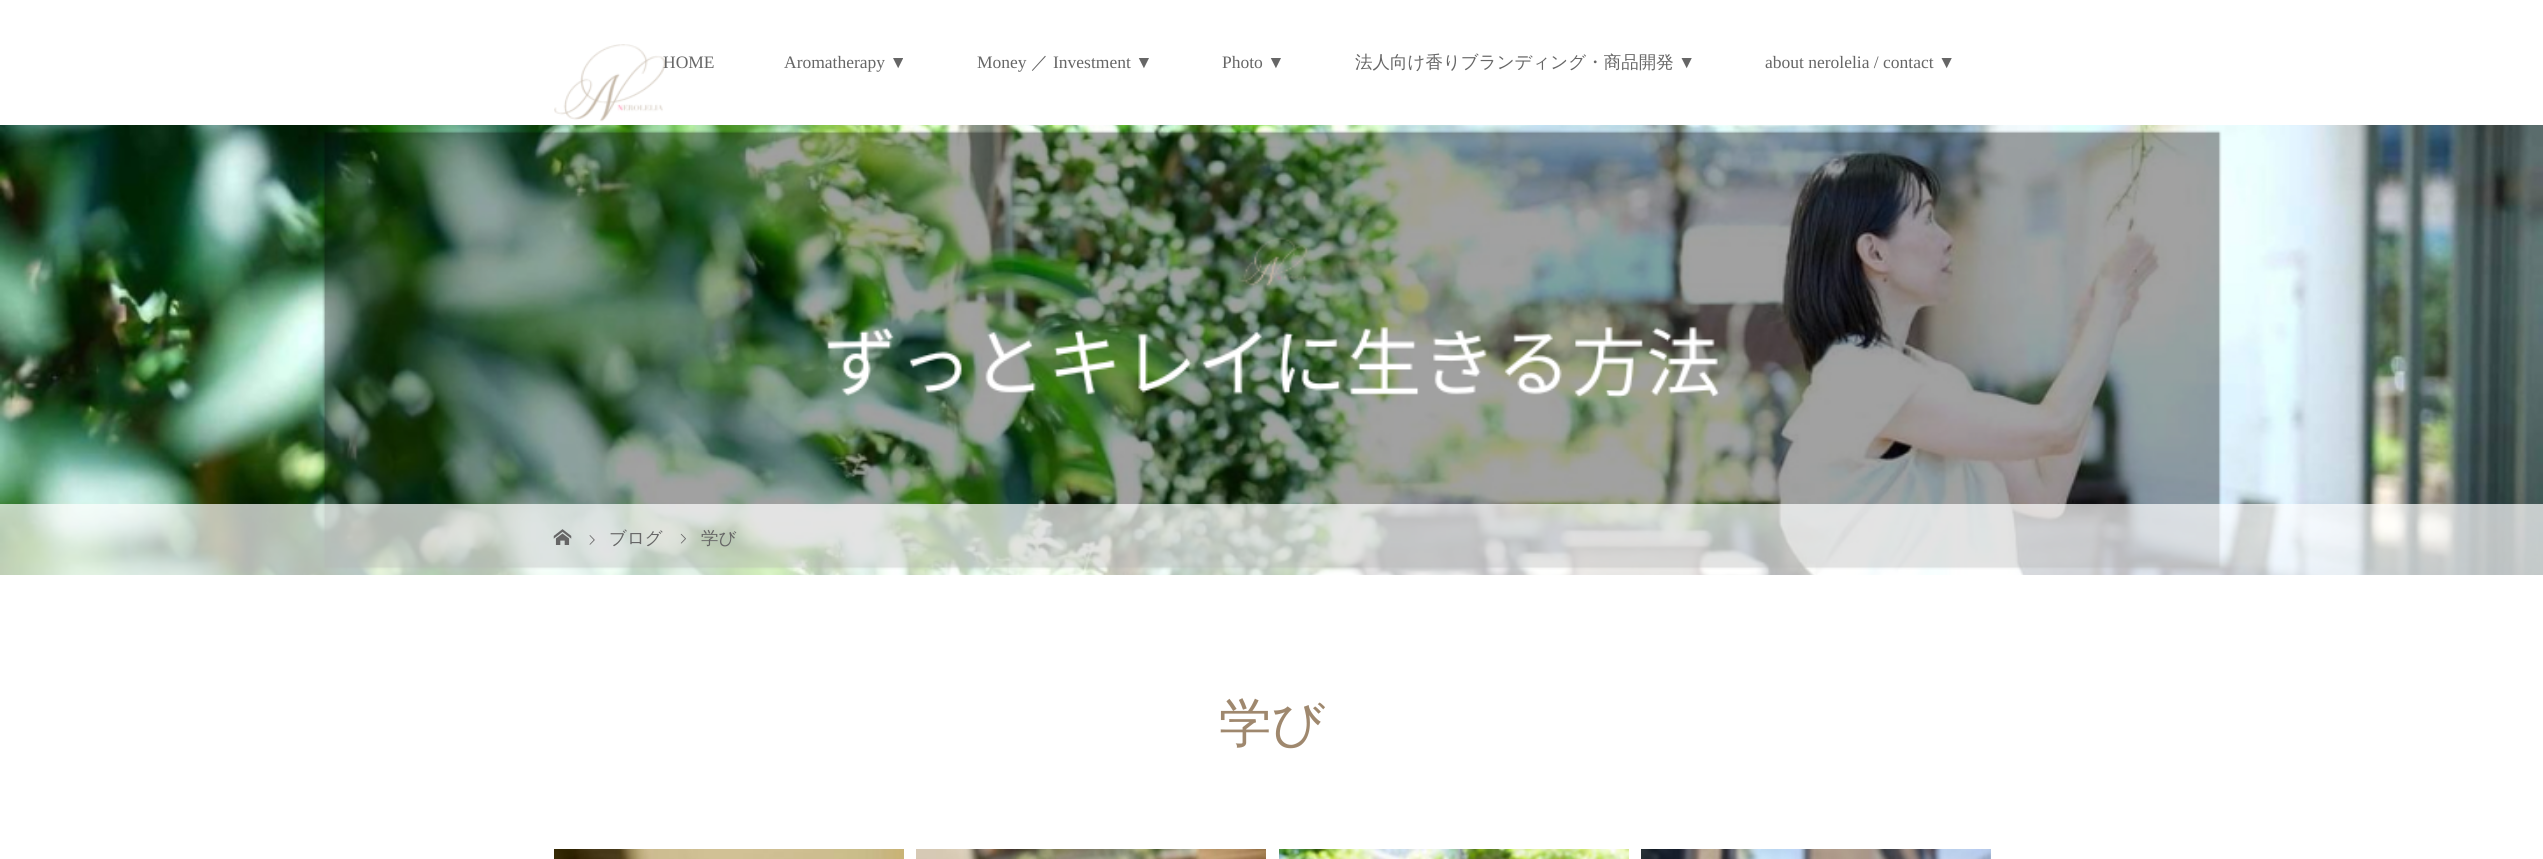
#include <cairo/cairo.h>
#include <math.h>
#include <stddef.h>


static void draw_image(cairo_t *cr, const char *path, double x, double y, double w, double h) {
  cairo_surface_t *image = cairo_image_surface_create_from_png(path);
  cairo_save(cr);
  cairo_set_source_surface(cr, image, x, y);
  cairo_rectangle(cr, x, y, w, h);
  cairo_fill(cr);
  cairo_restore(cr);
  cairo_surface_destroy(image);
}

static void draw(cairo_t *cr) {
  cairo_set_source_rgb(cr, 1, 1, 1);
  cairo_paint(cr);
  draw_image(cr, "images/1.png", 554, 44, 112, 78);
  draw_image(cr, "images/2.png", 0, 125, 2543, 450);
  cairo_set_source_rgba(cr, 1, 1, 1, 0.7);
  cairo_rectangle(cr, 0, 504, 2543, 71);
  cairo_fill(cr);
  draw_image(cr, "images/3.png", 553, 529, 19, 16);
  draw_image(cr, "images/4.png", 589, 535, 6, 10);
  draw_image(cr, "images/5.png", 680, 533, 6, 11);
  draw_image(cr, "images/6.png", 554, 849, 350, 10);
  draw_image(cr, "images/7.png", 916, 849, 350, 10);
  draw_image(cr, "images/8.png", 1279, 849, 350, 10);
  draw_image(cr, "images/9.png", 1641, 849, 350, 10);
  cairo_select_font_face(cr, "Liberation Serif", CAIRO_FONT_SLANT_NORMAL, CAIRO_FONT_WEIGHT_NORMAL);
  cairo_set_font_size(cr, 17.5);
  cairo_set_source_rgb(cr, 102 / 255.0, 102 / 255.0, 102 / 255.0);
  cairo_move_to(cr, 663, 68);
  cairo_show_text(cr, "HOME");
  cairo_move_to(cr, 784, 68);
  cairo_show_text(cr, "Aromatherapy ▼");
  cairo_move_to(cr, 977, 68);
  cairo_show_text(cr, "Money");
  cairo_select_font_face(cr, "WenQuanYi Zen Hei Medium", CAIRO_FONT_SLANT_NORMAL, CAIRO_FONT_WEIGHT_NORMAL);
  cairo_move_to(cr, 1031, 68);
  cairo_show_text(cr, "／");
  cairo_select_font_face(cr, "Liberation Serif", CAIRO_FONT_SLANT_NORMAL, CAIRO_FONT_WEIGHT_NORMAL);
  cairo_move_to(cr, 1053, 68);
  cairo_show_text(cr, "Investment ▼");
  cairo_move_to(cr, 1222, 68);
  cairo_show_text(cr, "Photo ▼");
  cairo_select_font_face(cr, "WenQuanYi Zen Hei Medium", CAIRO_FONT_SLANT_NORMAL, CAIRO_FONT_WEIGHT_NORMAL);
  cairo_move_to(cr, 1355, 68);
  cairo_show_text(cr, "法人向け香りブランディング・商品開発");
  cairo_select_font_face(cr, "Liberation Serif", CAIRO_FONT_SLANT_NORMAL, CAIRO_FONT_WEIGHT_NORMAL);
  cairo_move_to(cr, 1678, 68);
  cairo_show_text(cr, "▼");
  cairo_move_to(cr, 1765, 68);
  cairo_show_text(cr, "about nerolelia / contact ▼");
  cairo_select_font_face(cr, "WenQuanYi Zen Hei Medium", CAIRO_FONT_SLANT_NORMAL, CAIRO_FONT_WEIGHT_NORMAL);
  cairo_move_to(cr, 609, 544);
  cairo_show_text(cr, "ブログ");
  cairo_move_to(cr, 701, 544);
  cairo_show_text(cr, "学び");
  cairo_set_font_size(cr, 52.5);
  cairo_set_source_rgb(cr, 159 / 255.0, 136 / 255.0, 110 / 255.0);
  cairo_move_to(cr, 1219, 741);
  cairo_show_text(cr, "学び");
}

int main(void) {
  cairo_surface_t *surface = cairo_image_surface_create(CAIRO_FORMAT_RGB24, 2543, 859);
  cairo_t *cr = cairo_create(surface);
  cairo_font_options_t *options = cairo_font_options_create();
  cairo_font_options_set_hint_metrics(options, CAIRO_HINT_METRICS_OFF);
  cairo_font_options_set_hint_style(options, CAIRO_HINT_STYLE_NONE);
  cairo_set_font_options(cr, options);
  cairo_set_miter_limit(cr, 4);
  draw(cr);
  cairo_surface_write_to_png(surface, "out.png");
  cairo_font_options_destroy(options);
  cairo_destroy(cr);
  cairo_surface_destroy(surface);
  return 0;
}
